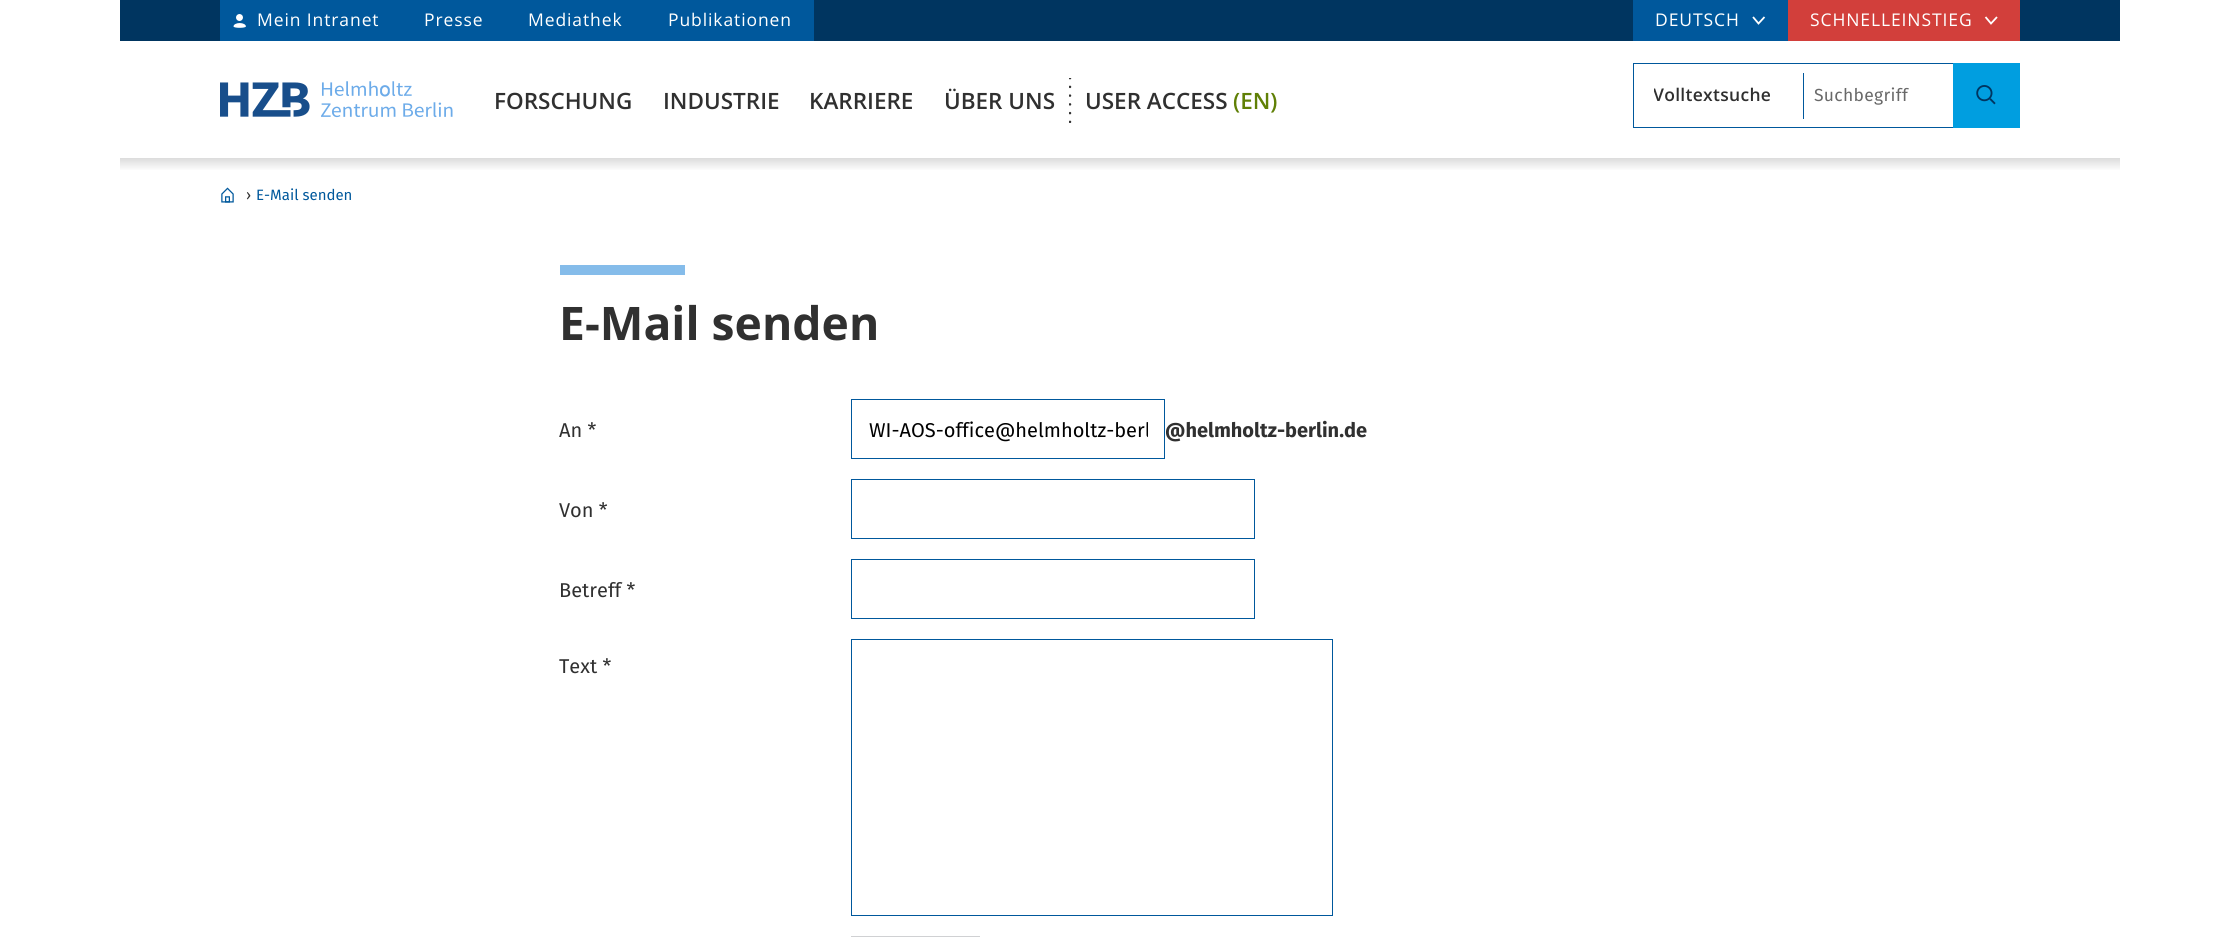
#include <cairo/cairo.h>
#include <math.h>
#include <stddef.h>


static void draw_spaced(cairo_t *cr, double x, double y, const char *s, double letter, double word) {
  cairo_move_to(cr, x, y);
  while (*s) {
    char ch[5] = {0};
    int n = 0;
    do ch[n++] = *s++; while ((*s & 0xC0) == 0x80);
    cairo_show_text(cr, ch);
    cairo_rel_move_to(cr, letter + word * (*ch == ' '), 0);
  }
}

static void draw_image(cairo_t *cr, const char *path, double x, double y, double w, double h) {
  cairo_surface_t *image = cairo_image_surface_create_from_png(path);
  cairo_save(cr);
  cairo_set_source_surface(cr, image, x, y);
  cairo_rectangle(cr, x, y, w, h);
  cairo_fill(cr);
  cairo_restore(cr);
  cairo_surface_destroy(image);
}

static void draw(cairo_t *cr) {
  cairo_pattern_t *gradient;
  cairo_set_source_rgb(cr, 1, 1, 1);
  cairo_paint(cr);
  cairo_set_source_rgb(cr, 0, 53 / 255.0, 96 / 255.0);
  cairo_rectangle(cr, 120, 0, 2000, 41);
  cairo_fill(cr);
  cairo_set_source_rgb(cr, 0, 88 / 255.0, 156 / 255.0);
  cairo_rectangle(cr, 220, 0, 594, 41);
  cairo_fill(cr);
  draw_image(cr, "images/1.png", 233, 14, 13, 14);
  cairo_rectangle(cr, 1633, 0, 155, 41);
  cairo_fill(cr);
  cairo_new_path(cr);
  cairo_move_to(cr, 1764.5, 17);
  cairo_line_to(cr, 1758.5, 23.5);
  cairo_line_to(cr, 1753, 17);
  cairo_set_source_rgb(cr, 1, 1, 1);
  cairo_set_line_width(cr, 1.8);
  cairo_stroke(cr);
  cairo_set_source_rgb(cr, 210 / 255.0, 63 / 255.0, 59 / 255.0);
  cairo_rectangle(cr, 1788, 0, 232, 41);
  cairo_fill(cr);
  cairo_new_path(cr);
  cairo_move_to(cr, 1997, 17);
  cairo_line_to(cr, 1991, 23.5);
  cairo_line_to(cr, 1985.5, 17);
  cairo_set_source_rgb(cr, 1, 1, 1);
  cairo_stroke(cr);
  draw_image(cr, "images/2.png", 220, 81, 233, 37);
  draw_image(cr, "images/3.png", 1069, 78, 3, 45);
  cairo_rectangle(cr, 1633.5, 63.5, 386, 64);
  cairo_set_source_rgb(cr, 0, 88 / 255.0, 156 / 255.0);
  cairo_set_line_width(cr, 1);
  cairo_stroke(cr);
  cairo_rectangle(cr, 1803, 73, 1, 46);
  cairo_fill(cr);
  cairo_set_source_rgb(cr, 0, 158 / 255.0, 224 / 255.0);
  cairo_rectangle(cr, 1953, 63, 67, 65);
  cairo_fill(cr);
  draw_image(cr, "images/4.png", 1976, 85, 20, 20);
  gradient = cairo_pattern_create_linear(1120, 157, 1120, 171);
  cairo_pattern_add_color_stop_rgba(gradient, 0, 217 / 255.0, 217 / 255.0, 217 / 255.0, 1);
  cairo_pattern_add_color_stop_rgba(gradient, 1, 1, 1, 1, 1);
  cairo_set_source(cr, gradient);
  cairo_pattern_destroy(gradient);
  cairo_rectangle(cr, 120, 158, 2000, 12);
  cairo_fill(cr);
  draw_image(cr, "images/5.png", 221, 187, 13, 16);
  cairo_set_source_rgb(cr, 133 / 255.0, 188 / 255.0, 234 / 255.0);
  cairo_rectangle(cr, 560, 265, 125, 10);
  cairo_fill(cr);
  cairo_rectangle(cr, 851.5, 399.5, 313, 59);
  cairo_set_source_rgb(cr, 0, 88 / 255.0, 156 / 255.0);
  cairo_stroke(cr);
  cairo_rectangle(cr, 851.5, 479.5, 403, 59);
  cairo_stroke(cr);
  cairo_rectangle(cr, 851.5, 559.5, 403, 59);
  cairo_stroke(cr);
  cairo_rectangle(cr, 851.5, 639.5, 481, 276);
  cairo_stroke(cr);
  cairo_set_source_rgb(cr, 208 / 255.0, 209 / 255.0, 211 / 255.0);
  cairo_rectangle(cr, 851, 936, 129, 1);
  cairo_fill(cr);
  cairo_select_font_face(cr, "Open Sans", CAIRO_FONT_SLANT_NORMAL, CAIRO_FONT_WEIGHT_NORMAL);
  cairo_set_font_size(cr, 17.5);
  cairo_set_source_rgb(cr, 1, 1, 1);
  draw_spaced(cr, 257, 26, "Mein Intranet", 0.9, 0);
  draw_spaced(cr, 424, 26, "Presse", 0.9, 0);
  draw_spaced(cr, 528, 26, "Mediathek", 0.9, 0);
  draw_spaced(cr, 668, 26, "Publikationen", 0.9, 0);
  draw_spaced(cr, 1655, 26, "DEUTSCH", 0.9, 0);
  draw_spaced(cr, 1810, 26, "SCHNELLEINSTIEG", 0.9, 0);
  cairo_select_font_face(cr, "Open Sans SemiBold", CAIRO_FONT_SLANT_NORMAL, CAIRO_FONT_WEIGHT_NORMAL);
  cairo_set_font_size(cr, 22.5);
  cairo_set_source_rgb(cr, 48 / 255.0, 48 / 255.0, 48 / 255.0);
  cairo_move_to(cr, 494, 109);
  cairo_show_text(cr, "FORSCHUNG");
  cairo_move_to(cr, 663, 109);
  cairo_show_text(cr, "INDUSTRIE");
  cairo_move_to(cr, 809, 109);
  cairo_show_text(cr, "KARRIERE");
  cairo_move_to(cr, 944, 109);
  cairo_show_text(cr, "ÜBER UNS");
  cairo_move_to(cr, 1085, 109);
  cairo_show_text(cr, "USER ACCESS");
  cairo_set_source_rgb(cr, 96 / 255.0, 128 / 255.0, 6 / 255.0);
  cairo_move_to(cr, 1233, 109);
  cairo_show_text(cr, "(EN)");
  cairo_save(cr);
  cairo_rectangle(cr, 1654, 84, 120, 22);
  cairo_clip(cr);
  cairo_set_font_size(cr, 17.5);
  cairo_set_source_rgb(cr, 48 / 255.0, 48 / 255.0, 48 / 255.0);
  draw_spaced(cr, 1653, 101, "Volltextsuche", 0.3, 0);
  cairo_restore(cr);
  cairo_select_font_face(cr, "Fira Sans", CAIRO_FONT_SLANT_NORMAL, CAIRO_FONT_WEIGHT_NORMAL);
  cairo_set_font_size(cr, 17.5);
  cairo_set_source_rgb(cr, 105 / 255.0, 105 / 255.0, 105 / 255.0);
  draw_spaced(cr, 1814, 101, "Suchbegriff", 0.3, 0);
  cairo_set_font_size(cr, 15);
  cairo_set_source_rgb(cr, 48 / 255.0, 48 / 255.0, 48 / 255.0);
  cairo_move_to(cr, 246, 200);
  cairo_show_text(cr, "›");
  cairo_set_source_rgb(cr, 0, 88 / 255.0, 156 / 255.0);
  cairo_move_to(cr, 256, 200);
  cairo_show_text(cr, "E-Mail senden");
  cairo_select_font_face(cr, "Open Sans", CAIRO_FONT_SLANT_NORMAL, CAIRO_FONT_WEIGHT_BOLD);
  cairo_set_font_size(cr, 46.25);
  cairo_set_source_rgb(cr, 48 / 255.0, 48 / 255.0, 48 / 255.0);
  cairo_move_to(cr, 559, 340);
  cairo_show_text(cr, "E-Mail senden");
  cairo_select_font_face(cr, "Fira Sans", CAIRO_FONT_SLANT_NORMAL, CAIRO_FONT_WEIGHT_NORMAL);
  cairo_set_font_size(cr, 20);
  cairo_move_to(cr, 559, 437);
  cairo_show_text(cr, "An *");
  cairo_save(cr);
  cairo_rectangle(cr, 869, 418, 279, 25);
  cairo_clip(cr);
  cairo_set_source_rgb(cr, 0, 0, 0);
  cairo_move_to(cr, 869, 437);
  cairo_show_text(cr, "WI-AOS-office@helmholtz-berl");
  cairo_restore(cr);
  cairo_select_font_face(cr, "Fira Sans", CAIRO_FONT_SLANT_NORMAL, CAIRO_FONT_WEIGHT_BOLD);
  cairo_move_to(cr, 1165, 437);
  cairo_show_text(cr, "@helmholtz-berlin.de");
  cairo_select_font_face(cr, "Fira Sans", CAIRO_FONT_SLANT_NORMAL, CAIRO_FONT_WEIGHT_NORMAL);
  cairo_move_to(cr, 559, 517);
  cairo_show_text(cr, "Von *");
  cairo_move_to(cr, 559, 597);
  cairo_show_text(cr, "Betreff *");
  cairo_move_to(cr, 559, 673);
  cairo_show_text(cr, "Text *");
}

int main(void) {
  cairo_surface_t *surface = cairo_image_surface_create(CAIRO_FORMAT_RGB24, 2238, 937);
  cairo_t *cr = cairo_create(surface);
  cairo_font_options_t *options = cairo_font_options_create();
  cairo_font_options_set_hint_metrics(options, CAIRO_HINT_METRICS_OFF);
  cairo_font_options_set_hint_style(options, CAIRO_HINT_STYLE_NONE);
  cairo_set_font_options(cr, options);
  cairo_set_miter_limit(cr, 4);
  draw(cr);
  cairo_surface_write_to_png(surface, "out.png");
  cairo_font_options_destroy(options);
  cairo_destroy(cr);
  cairo_surface_destroy(surface);
  return 0;
}
